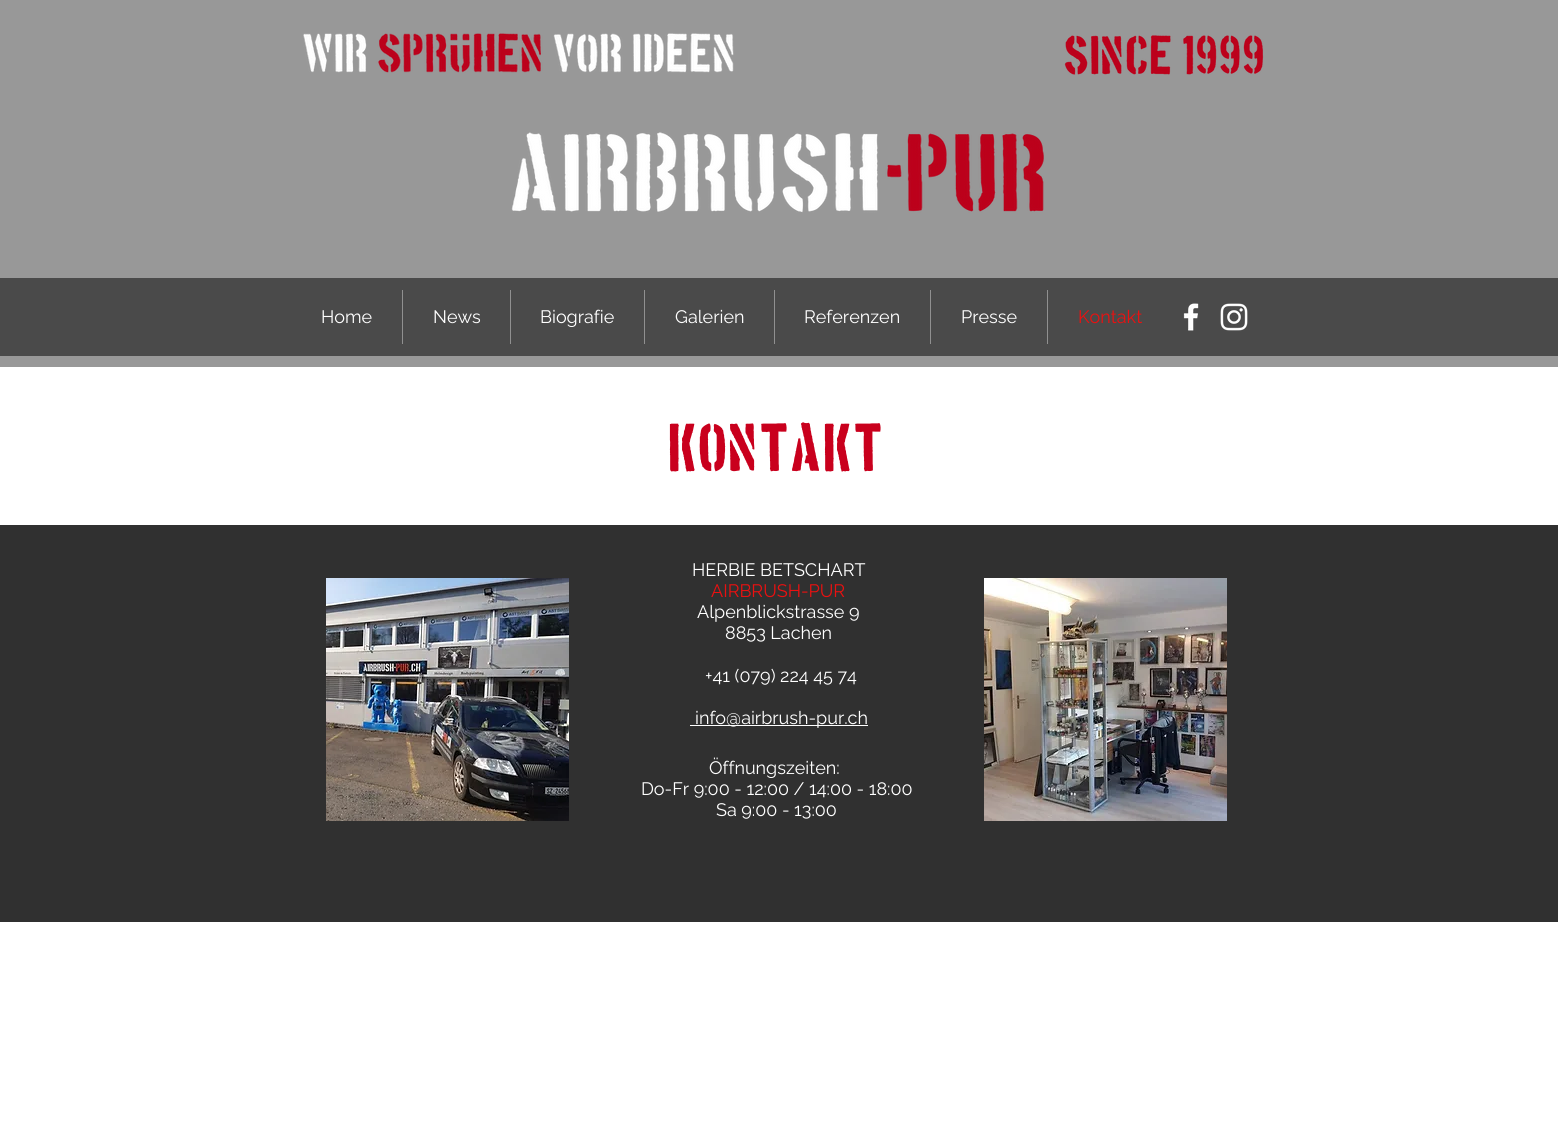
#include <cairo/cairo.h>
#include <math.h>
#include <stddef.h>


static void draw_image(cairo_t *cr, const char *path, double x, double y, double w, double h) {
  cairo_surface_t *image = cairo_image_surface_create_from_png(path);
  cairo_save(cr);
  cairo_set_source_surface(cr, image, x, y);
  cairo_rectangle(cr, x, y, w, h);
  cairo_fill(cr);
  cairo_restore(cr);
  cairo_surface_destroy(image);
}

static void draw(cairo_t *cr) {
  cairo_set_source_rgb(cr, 1, 1, 1);
  cairo_paint(cr);
  cairo_set_source_rgb(cr, 152 / 255.0, 152 / 255.0, 152 / 255.0);
  cairo_rectangle(cr, 0, 0, 1558, 367);
  cairo_fill(cr);
  draw_image(cr, "images/1.png", 303, 33, 431, 40);
  draw_image(cr, "images/2.png", 1064, 35, 200, 40);
  draw_image(cr, "images/3.png", 511, 132, 533, 81);
  cairo_set_source_rgb(cr, 74 / 255.0, 74 / 255.0, 74 / 255.0);
  cairo_rectangle(cr, 0, 278, 1558, 78);
  cairo_fill(cr);
  cairo_set_source_rgb(cr, 144 / 255.0, 144 / 255.0, 144 / 255.0);
  cairo_rectangle(cr, 402, 290, 1, 54);
  cairo_fill(cr);
  cairo_rectangle(cr, 510, 290, 1, 54);
  cairo_fill(cr);
  cairo_rectangle(cr, 644, 290, 1, 54);
  cairo_fill(cr);
  cairo_rectangle(cr, 774, 290, 1, 54);
  cairo_fill(cr);
  cairo_rectangle(cr, 930, 290, 1, 54);
  cairo_fill(cr);
  cairo_rectangle(cr, 1047, 290, 1, 54);
  cairo_fill(cr);
  draw_image(cr, "images/4.png", 1183, 303, 16, 28);
  draw_image(cr, "images/5.png", 1220, 303, 28, 28);
  cairo_set_source_rgb(cr, 48 / 255.0, 48 / 255.0, 48 / 255.0);
  cairo_rectangle(cr, 0, 525, 1558, 397);
  cairo_fill(cr);
  draw_image(cr, "images/6.png", 326, 578, 243, 243);
  draw_image(cr, "images/7.png", 984, 578, 243, 243);
  cairo_set_source_rgb(cr, 1, 1, 1);
  cairo_rectangle(cr, 690, 725, 178, 1);
  cairo_fill(cr);
  cairo_select_font_face(cr, "Raleway", CAIRO_FONT_SLANT_NORMAL, CAIRO_FONT_WEIGHT_NORMAL);
  cairo_set_font_size(cr, 18);
  cairo_move_to(cr, 321, 323);
  cairo_show_text(cr, "Home");
  cairo_move_to(cr, 433, 323);
  cairo_show_text(cr, "News");
  cairo_move_to(cr, 540, 323);
  cairo_show_text(cr, "Biografie");
  cairo_move_to(cr, 675, 323);
  cairo_show_text(cr, "Galerien");
  cairo_move_to(cr, 804, 323);
  cairo_show_text(cr, "Referenzen");
  cairo_move_to(cr, 961, 323);
  cairo_show_text(cr, "Presse");
  cairo_set_source_rgb(cr, 235 / 255.0, 16 / 255.0, 16 / 255.0);
  cairo_move_to(cr, 1078, 323);
  cairo_show_text(cr, "Kontakt");
  cairo_select_font_face(cr, "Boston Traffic", CAIRO_FONT_SLANT_NORMAL, CAIRO_FONT_WEIGHT_NORMAL);
  cairo_set_font_size(cr, 54);
  cairo_set_source_rgb(cr, 201 / 255.0, 0, 29 / 255.0);
  cairo_move_to(cr, 669, 471);
  cairo_show_text(cr, "KONTAKT");
  cairo_select_font_face(cr, "Raleway", CAIRO_FONT_SLANT_NORMAL, CAIRO_FONT_WEIGHT_NORMAL);
  cairo_set_font_size(cr, 18);
  cairo_set_source_rgb(cr, 1, 1, 1);
  cairo_move_to(cr, 692, 576);
  cairo_show_text(cr, "HERBIE BETSCHART");
  cairo_set_source_rgb(cr, 235 / 255.0, 16 / 255.0, 16 / 255.0);
  cairo_move_to(cr, 711, 597);
  cairo_show_text(cr, "AIRBRUSH-PUR");
  cairo_set_source_rgb(cr, 1, 1, 1);
  cairo_move_to(cr, 697, 618);
  cairo_show_text(cr, "Alpenblickstrasse 9");
  cairo_move_to(cr, 725, 639);
  cairo_show_text(cr, "8853 Lachen");
  cairo_move_to(cr, 705, 682);
  cairo_show_text(cr, "+41 (079) 224 45 74");
  cairo_move_to(cr, 695, 724);
  cairo_show_text(cr, "info@airbrush-pur.ch");
  cairo_move_to(cr, 709, 774);
  cairo_show_text(cr, "Öffnungszeiten:");
  cairo_move_to(cr, 641, 795);
  cairo_show_text(cr, "Do-Fr 9:00 - 12:00 / 14:00 - 18:00");
  cairo_move_to(cr, 716, 816);
  cairo_show_text(cr, "Sa 9:00 - 13:00");
}

int main(void) {
  cairo_surface_t *surface = cairo_image_surface_create(CAIRO_FORMAT_RGB24, 1558, 1140);
  cairo_t *cr = cairo_create(surface);
  cairo_font_options_t *options = cairo_font_options_create();
  cairo_font_options_set_hint_metrics(options, CAIRO_HINT_METRICS_OFF);
  cairo_font_options_set_hint_style(options, CAIRO_HINT_STYLE_NONE);
  cairo_set_font_options(cr, options);
  cairo_set_miter_limit(cr, 4);
  draw(cr);
  cairo_surface_write_to_png(surface, "out.png");
  cairo_font_options_destroy(options);
  cairo_destroy(cr);
  cairo_surface_destroy(surface);
  return 0;
}
